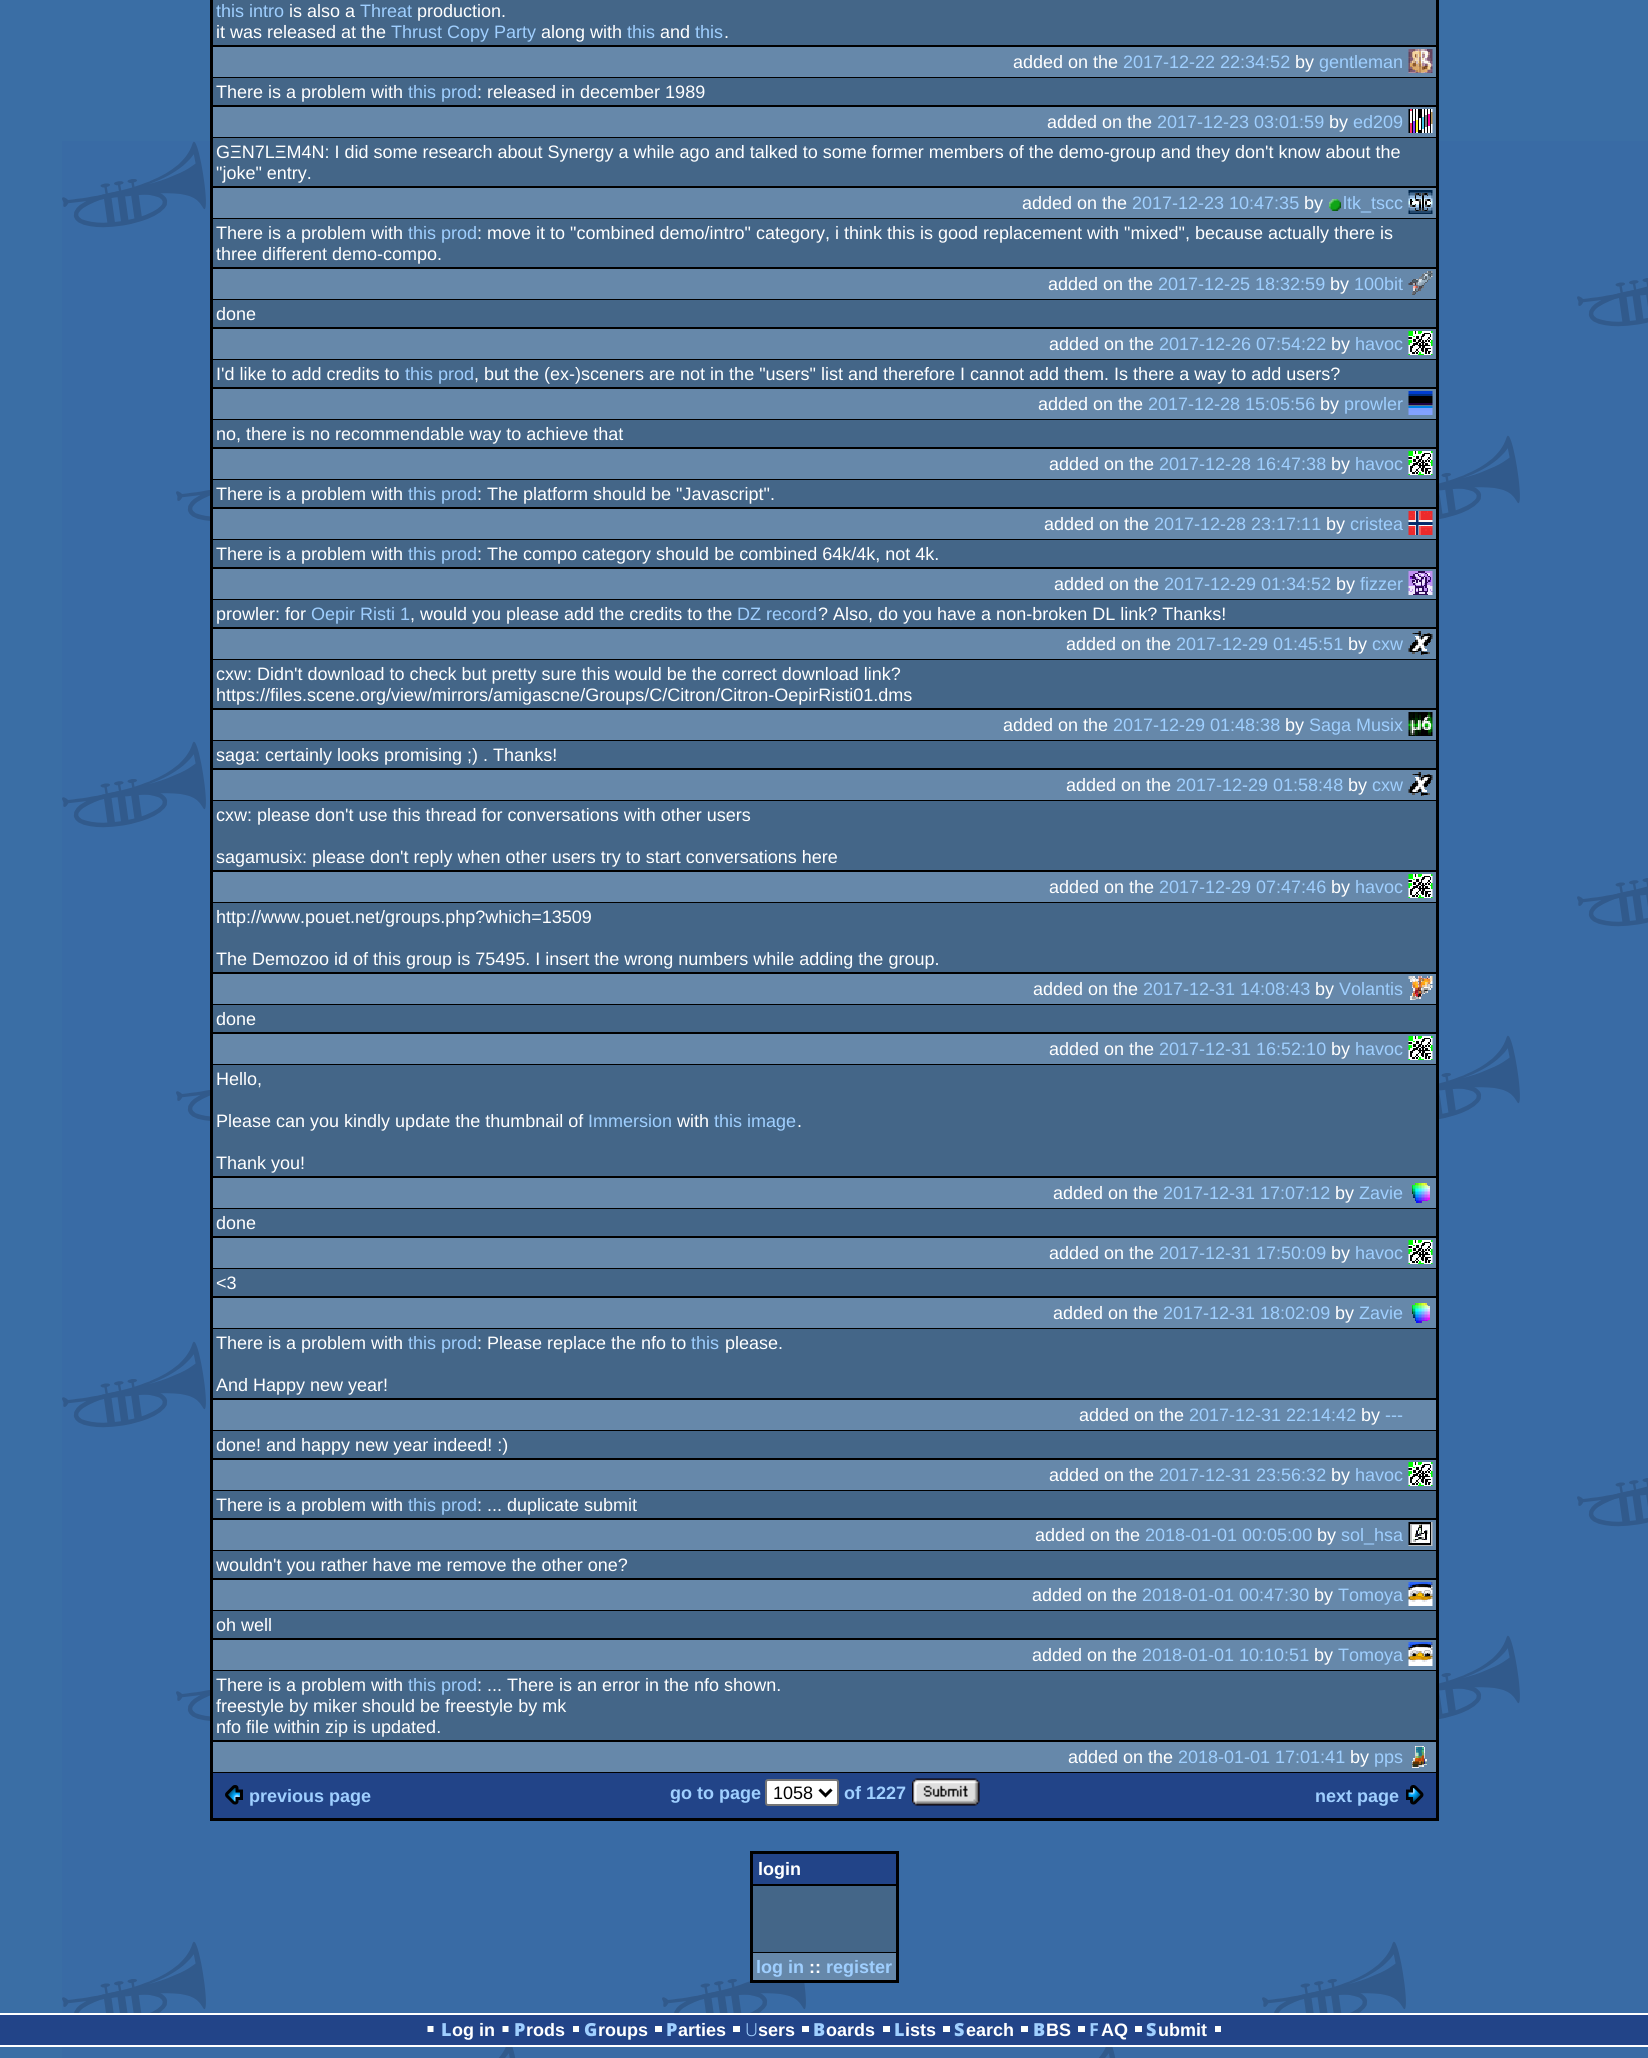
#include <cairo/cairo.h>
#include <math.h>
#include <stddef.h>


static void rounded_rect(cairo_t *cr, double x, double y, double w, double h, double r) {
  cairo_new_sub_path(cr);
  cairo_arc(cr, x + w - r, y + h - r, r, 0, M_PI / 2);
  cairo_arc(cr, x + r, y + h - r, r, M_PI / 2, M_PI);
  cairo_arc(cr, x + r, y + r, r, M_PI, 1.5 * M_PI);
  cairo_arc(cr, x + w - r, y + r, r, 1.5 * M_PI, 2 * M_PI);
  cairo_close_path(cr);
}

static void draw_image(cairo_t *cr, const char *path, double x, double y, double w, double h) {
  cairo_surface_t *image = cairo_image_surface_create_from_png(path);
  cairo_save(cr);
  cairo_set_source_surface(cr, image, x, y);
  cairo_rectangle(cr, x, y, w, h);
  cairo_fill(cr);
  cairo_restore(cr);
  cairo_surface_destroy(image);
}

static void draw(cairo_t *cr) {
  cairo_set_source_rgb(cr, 58 / 255.0, 110 / 255.0, 165 / 255.0);
  cairo_paint(cr);
  draw_image(cr, "images/1.png", 62, 141, 1586, 1917);
  cairo_set_source_rgb(cr, 0, 0, 0);
  cairo_rectangle(cr, 210, 0, 1229, 1821);
  cairo_fill(cr);
  cairo_set_source_rgb(cr, 68 / 255.0, 102 / 255.0, 136 / 255.0);
  cairo_rectangle(cr, 213, 0, 1223, 45);
  cairo_fill(cr);
  cairo_set_source_rgb(cr, 102 / 255.0, 136 / 255.0, 170 / 255.0);
  cairo_rectangle(cr, 213, 47, 1223, 30);
  cairo_fill(cr);
  draw_image(cr, "images/2.png", 1408, 49, 25, 24);
  cairo_set_source_rgb(cr, 68 / 255.0, 102 / 255.0, 136 / 255.0);
  cairo_rectangle(cr, 213, 78, 1223, 27);
  cairo_fill(cr);
  cairo_set_source_rgb(cr, 102 / 255.0, 136 / 255.0, 170 / 255.0);
  cairo_rectangle(cr, 213, 107, 1223, 30);
  cairo_fill(cr);
  draw_image(cr, "images/3.png", 1408, 109, 25, 24);
  cairo_set_source_rgb(cr, 68 / 255.0, 102 / 255.0, 136 / 255.0);
  cairo_rectangle(cr, 213, 138, 1223, 48);
  cairo_fill(cr);
  cairo_set_source_rgb(cr, 102 / 255.0, 136 / 255.0, 170 / 255.0);
  cairo_rectangle(cr, 213, 188, 1223, 30);
  cairo_fill(cr);
  draw_image(cr, "images/4.png", 1329, 199, 12, 12);
  draw_image(cr, "images/5.png", 1408, 190, 25, 24);
  cairo_set_source_rgb(cr, 68 / 255.0, 102 / 255.0, 136 / 255.0);
  cairo_rectangle(cr, 213, 219, 1223, 48);
  cairo_fill(cr);
  cairo_set_source_rgb(cr, 102 / 255.0, 136 / 255.0, 170 / 255.0);
  cairo_rectangle(cr, 213, 269, 1223, 30);
  cairo_fill(cr);
  draw_image(cr, "images/6.png", 1408, 271, 25, 24);
  cairo_set_source_rgb(cr, 68 / 255.0, 102 / 255.0, 136 / 255.0);
  cairo_rectangle(cr, 213, 300, 1223, 27);
  cairo_fill(cr);
  cairo_set_source_rgb(cr, 102 / 255.0, 136 / 255.0, 170 / 255.0);
  cairo_rectangle(cr, 213, 329, 1223, 30);
  cairo_fill(cr);
  draw_image(cr, "images/7.png", 1408, 331, 25, 24);
  cairo_set_source_rgb(cr, 68 / 255.0, 102 / 255.0, 136 / 255.0);
  cairo_rectangle(cr, 213, 360, 1223, 27);
  cairo_fill(cr);
  cairo_set_source_rgb(cr, 102 / 255.0, 136 / 255.0, 170 / 255.0);
  cairo_rectangle(cr, 213, 389, 1223, 30);
  cairo_fill(cr);
  draw_image(cr, "images/8.png", 1408, 391, 25, 24);
  cairo_set_source_rgb(cr, 68 / 255.0, 102 / 255.0, 136 / 255.0);
  cairo_rectangle(cr, 213, 420, 1223, 27);
  cairo_fill(cr);
  cairo_set_source_rgb(cr, 102 / 255.0, 136 / 255.0, 170 / 255.0);
  cairo_rectangle(cr, 213, 449, 1223, 30);
  cairo_fill(cr);
  draw_image(cr, "images/7.png", 1408, 451, 25, 24);
  cairo_set_source_rgb(cr, 68 / 255.0, 102 / 255.0, 136 / 255.0);
  cairo_rectangle(cr, 213, 480, 1223, 27);
  cairo_fill(cr);
  cairo_set_source_rgb(cr, 102 / 255.0, 136 / 255.0, 170 / 255.0);
  cairo_rectangle(cr, 213, 509, 1223, 30);
  cairo_fill(cr);
  draw_image(cr, "images/9.png", 1408, 511, 25, 24);
  cairo_set_source_rgb(cr, 68 / 255.0, 102 / 255.0, 136 / 255.0);
  cairo_rectangle(cr, 213, 540, 1223, 27);
  cairo_fill(cr);
  cairo_set_source_rgb(cr, 102 / 255.0, 136 / 255.0, 170 / 255.0);
  cairo_rectangle(cr, 213, 569, 1223, 30);
  cairo_fill(cr);
  draw_image(cr, "images/10.png", 1408, 571, 25, 24);
  cairo_set_source_rgb(cr, 68 / 255.0, 102 / 255.0, 136 / 255.0);
  cairo_rectangle(cr, 213, 600, 1223, 27);
  cairo_fill(cr);
  cairo_set_source_rgb(cr, 102 / 255.0, 136 / 255.0, 170 / 255.0);
  cairo_rectangle(cr, 213, 629, 1223, 30);
  cairo_fill(cr);
  draw_image(cr, "images/11.png", 1408, 631, 25, 24);
  cairo_set_source_rgb(cr, 68 / 255.0, 102 / 255.0, 136 / 255.0);
  cairo_rectangle(cr, 213, 660, 1223, 48);
  cairo_fill(cr);
  cairo_set_source_rgb(cr, 102 / 255.0, 136 / 255.0, 170 / 255.0);
  cairo_rectangle(cr, 213, 710, 1223, 30);
  cairo_fill(cr);
  draw_image(cr, "images/12.png", 1408, 712, 25, 24);
  cairo_set_source_rgb(cr, 68 / 255.0, 102 / 255.0, 136 / 255.0);
  cairo_rectangle(cr, 213, 741, 1223, 27);
  cairo_fill(cr);
  cairo_set_source_rgb(cr, 102 / 255.0, 136 / 255.0, 170 / 255.0);
  cairo_rectangle(cr, 213, 770, 1223, 30);
  cairo_fill(cr);
  draw_image(cr, "images/11.png", 1408, 772, 25, 24);
  cairo_set_source_rgb(cr, 68 / 255.0, 102 / 255.0, 136 / 255.0);
  cairo_rectangle(cr, 213, 801, 1223, 69);
  cairo_fill(cr);
  cairo_set_source_rgb(cr, 102 / 255.0, 136 / 255.0, 170 / 255.0);
  cairo_rectangle(cr, 213, 872, 1223, 30);
  cairo_fill(cr);
  draw_image(cr, "images/7.png", 1408, 874, 25, 24);
  cairo_set_source_rgb(cr, 68 / 255.0, 102 / 255.0, 136 / 255.0);
  cairo_rectangle(cr, 213, 903, 1223, 69);
  cairo_fill(cr);
  cairo_set_source_rgb(cr, 102 / 255.0, 136 / 255.0, 170 / 255.0);
  cairo_rectangle(cr, 213, 974, 1223, 30);
  cairo_fill(cr);
  draw_image(cr, "images/13.png", 1408, 976, 25, 24);
  cairo_set_source_rgb(cr, 68 / 255.0, 102 / 255.0, 136 / 255.0);
  cairo_rectangle(cr, 213, 1005, 1223, 27);
  cairo_fill(cr);
  cairo_set_source_rgb(cr, 102 / 255.0, 136 / 255.0, 170 / 255.0);
  cairo_rectangle(cr, 213, 1034, 1223, 30);
  cairo_fill(cr);
  draw_image(cr, "images/7.png", 1408, 1036, 25, 24);
  cairo_set_source_rgb(cr, 68 / 255.0, 102 / 255.0, 136 / 255.0);
  cairo_rectangle(cr, 213, 1065, 1223, 111);
  cairo_fill(cr);
  cairo_set_source_rgb(cr, 102 / 255.0, 136 / 255.0, 170 / 255.0);
  cairo_rectangle(cr, 213, 1178, 1223, 30);
  cairo_fill(cr);
  draw_image(cr, "images/14.png", 1412, 1183, 18, 20);
  cairo_set_source_rgb(cr, 68 / 255.0, 102 / 255.0, 136 / 255.0);
  cairo_rectangle(cr, 213, 1209, 1223, 27);
  cairo_fill(cr);
  cairo_set_source_rgb(cr, 102 / 255.0, 136 / 255.0, 170 / 255.0);
  cairo_rectangle(cr, 213, 1238, 1223, 30);
  cairo_fill(cr);
  draw_image(cr, "images/7.png", 1408, 1240, 25, 24);
  cairo_set_source_rgb(cr, 68 / 255.0, 102 / 255.0, 136 / 255.0);
  cairo_rectangle(cr, 213, 1269, 1223, 27);
  cairo_fill(cr);
  cairo_set_source_rgb(cr, 102 / 255.0, 136 / 255.0, 170 / 255.0);
  cairo_rectangle(cr, 213, 1298, 1223, 30);
  cairo_fill(cr);
  draw_image(cr, "images/14.png", 1412, 1303, 18, 20);
  cairo_set_source_rgb(cr, 68 / 255.0, 102 / 255.0, 136 / 255.0);
  cairo_rectangle(cr, 213, 1329, 1223, 69);
  cairo_fill(cr);
  cairo_set_source_rgb(cr, 102 / 255.0, 136 / 255.0, 170 / 255.0);
  cairo_rectangle(cr, 213, 1400, 1223, 30);
  cairo_fill(cr);
  cairo_set_source_rgb(cr, 68 / 255.0, 102 / 255.0, 136 / 255.0);
  cairo_rectangle(cr, 213, 1431, 1223, 27);
  cairo_fill(cr);
  cairo_set_source_rgb(cr, 102 / 255.0, 136 / 255.0, 170 / 255.0);
  cairo_rectangle(cr, 213, 1460, 1223, 30);
  cairo_fill(cr);
  draw_image(cr, "images/7.png", 1408, 1462, 25, 24);
  cairo_set_source_rgb(cr, 68 / 255.0, 102 / 255.0, 136 / 255.0);
  cairo_rectangle(cr, 213, 1491, 1223, 27);
  cairo_fill(cr);
  cairo_set_source_rgb(cr, 102 / 255.0, 136 / 255.0, 170 / 255.0);
  cairo_rectangle(cr, 213, 1520, 1223, 30);
  cairo_fill(cr);
  draw_image(cr, "images/15.png", 1408, 1522, 25, 24);
  cairo_set_source_rgb(cr, 68 / 255.0, 102 / 255.0, 136 / 255.0);
  cairo_rectangle(cr, 213, 1551, 1223, 27);
  cairo_fill(cr);
  cairo_set_source_rgb(cr, 102 / 255.0, 136 / 255.0, 170 / 255.0);
  cairo_rectangle(cr, 213, 1580, 1223, 30);
  cairo_fill(cr);
  draw_image(cr, "images/16.png", 1408, 1582, 25, 24);
  cairo_set_source_rgb(cr, 68 / 255.0, 102 / 255.0, 136 / 255.0);
  cairo_rectangle(cr, 213, 1611, 1223, 27);
  cairo_fill(cr);
  cairo_set_source_rgb(cr, 102 / 255.0, 136 / 255.0, 170 / 255.0);
  cairo_rectangle(cr, 213, 1640, 1223, 30);
  cairo_fill(cr);
  draw_image(cr, "images/16.png", 1408, 1642, 25, 24);
  cairo_set_source_rgb(cr, 68 / 255.0, 102 / 255.0, 136 / 255.0);
  cairo_rectangle(cr, 213, 1671, 1223, 69);
  cairo_fill(cr);
  cairo_set_source_rgb(cr, 102 / 255.0, 136 / 255.0, 170 / 255.0);
  cairo_rectangle(cr, 213, 1742, 1223, 30);
  cairo_fill(cr);
  draw_image(cr, "images/17.png", 1412, 1746, 15, 22);
  cairo_set_source_rgb(cr, 34 / 255.0, 68 / 255.0, 136 / 255.0);
  cairo_rectangle(cr, 213, 1773, 1223, 45);
  cairo_fill(cr);
  draw_image(cr, "images/18.png", 225, 1785, 18, 20);
  cairo_set_source_rgb(cr, 1, 1, 1);
  rounded_rect(cr, 766, 1780, 72, 25, 2);
  cairo_fill_preserve(cr);
  cairo_set_source_rgb(cr, 118 / 255.0, 118 / 255.0, 118 / 255.0);
  cairo_stroke(cr);
  cairo_new_path(cr);
  cairo_move_to(cr, 819.5, 1789.5);
  cairo_line_to(cr, 825.5, 1795.5);
  cairo_line_to(cr, 831.5, 1789.5);
  cairo_set_source_rgb(cr, 0, 0, 0);
  cairo_set_line_width(cr, 3);
  cairo_stroke(cr);
  draw_image(cr, "images/19.png", 912, 1778, 68, 28);
  draw_image(cr, "images/20.png", 1406, 1785, 18, 20);
  cairo_rectangle(cr, 750, 1851, 149, 132);
  cairo_fill(cr);
  cairo_set_source_rgb(cr, 34 / 255.0, 68 / 255.0, 136 / 255.0);
  cairo_rectangle(cr, 753, 1854, 143, 30);
  cairo_fill(cr);
  cairo_set_source_rgb(cr, 68 / 255.0, 102 / 255.0, 136 / 255.0);
  cairo_rectangle(cr, 753, 1886, 143, 66);
  cairo_fill(cr);
  cairo_set_source_rgb(cr, 102 / 255.0, 136 / 255.0, 170 / 255.0);
  cairo_rectangle(cr, 753, 1953, 143, 27);
  cairo_fill(cr);
  cairo_set_source_rgb(cr, 34 / 255.0, 68 / 255.0, 136 / 255.0);
  cairo_rectangle(cr, 0, 2015, 1648, 30);
  cairo_fill(cr);
  cairo_set_source_rgb(cr, 1, 1, 1);
  cairo_rectangle(cr, 0, 2013, 1648, 2);
  cairo_fill(cr);
  cairo_rectangle(cr, 0, 2045, 1648, 2);
  cairo_fill(cr);
  draw_image(cr, "images/21.png", 427, 2026, 82, 6);
  cairo_set_source_rgb(cr, 252 / 255.0, 254 / 255.0, 252 / 255.0);
  cairo_rectangle(cr, 573, 2026, 6, 6);
  cairo_fill(cr);
  cairo_rectangle(cr, 655, 2026, 7, 6);
  cairo_fill(cr);
  cairo_rectangle(cr, 733, 2026, 7, 6);
  cairo_fill(cr);
  cairo_rectangle(cr, 802, 2026, 7, 6);
  cairo_fill(cr);
  cairo_rectangle(cr, 883, 2026, 7, 6);
  cairo_fill(cr);
  cairo_rectangle(cr, 943, 2026, 7, 6);
  cairo_fill(cr);
  cairo_rectangle(cr, 1021, 2026, 7, 6);
  cairo_fill(cr);
  cairo_rectangle(cr, 1078, 2026, 7, 6);
  cairo_fill(cr);
  cairo_rectangle(cr, 1135, 2026, 7, 6);
  cairo_fill(cr);
  cairo_rectangle(cr, 1215, 2026, 6, 6);
  cairo_fill(cr);
  cairo_select_font_face(cr, "Liberation Sans", CAIRO_FONT_SLANT_NORMAL, CAIRO_FONT_WEIGHT_NORMAL);
  cairo_set_font_size(cr, 18);
  cairo_set_source_rgb(cr, 159 / 255.0, 207 / 255.0, 1);
  cairo_move_to(cr, 216, 17);
  cairo_show_text(cr, "this intro");
  cairo_set_source_rgb(cr, 1, 1, 1);
  cairo_move_to(cr, 289, 17);
  cairo_show_text(cr, "is also a");
  cairo_set_source_rgb(cr, 159 / 255.0, 207 / 255.0, 1);
  cairo_move_to(cr, 360, 17);
  cairo_show_text(cr, "Threat");
  cairo_set_source_rgb(cr, 1, 1, 1);
  cairo_move_to(cr, 417, 17);
  cairo_show_text(cr, "production.");
  cairo_move_to(cr, 216, 38);
  cairo_show_text(cr, "it was released at the");
  cairo_set_source_rgb(cr, 159 / 255.0, 207 / 255.0, 1);
  cairo_move_to(cr, 391, 38);
  cairo_show_text(cr, "Thrust Copy Party");
  cairo_set_source_rgb(cr, 1, 1, 1);
  cairo_move_to(cr, 541, 38);
  cairo_show_text(cr, "along with");
  cairo_set_source_rgb(cr, 159 / 255.0, 207 / 255.0, 1);
  cairo_move_to(cr, 627, 38);
  cairo_show_text(cr, "this");
  cairo_set_source_rgb(cr, 1, 1, 1);
  cairo_move_to(cr, 660, 38);
  cairo_show_text(cr, "and");
  cairo_set_source_rgb(cr, 159 / 255.0, 207 / 255.0, 1);
  cairo_move_to(cr, 695, 38);
  cairo_show_text(cr, "this");
  cairo_set_source_rgb(cr, 1, 1, 1);
  cairo_move_to(cr, 724, 38);
  cairo_show_text(cr, ".");
  cairo_move_to(cr, 1013, 68);
  cairo_show_text(cr, "added on the");
  cairo_set_source_rgb(cr, 159 / 255.0, 207 / 255.0, 1);
  cairo_move_to(cr, 1123, 68);
  cairo_show_text(cr, "2017-12-22 22:34:52");
  cairo_set_source_rgb(cr, 1, 1, 1);
  cairo_move_to(cr, 1295, 68);
  cairo_show_text(cr, "by");
  cairo_set_source_rgb(cr, 159 / 255.0, 207 / 255.0, 1);
  cairo_move_to(cr, 1319, 68);
  cairo_show_text(cr, "gentleman");
  cairo_set_source_rgb(cr, 1, 1, 1);
  cairo_move_to(cr, 216, 98);
  cairo_show_text(cr, "There is a problem with");
  cairo_set_source_rgb(cr, 159 / 255.0, 207 / 255.0, 1);
  cairo_move_to(cr, 408, 98);
  cairo_show_text(cr, "this prod");
  cairo_set_source_rgb(cr, 1, 1, 1);
  cairo_move_to(cr, 477, 98);
  cairo_show_text(cr, ": released in december 1989");
  cairo_move_to(cr, 1047, 128);
  cairo_show_text(cr, "added on the");
  cairo_set_source_rgb(cr, 159 / 255.0, 207 / 255.0, 1);
  cairo_move_to(cr, 1157, 128);
  cairo_show_text(cr, "2017-12-23 03:01:59");
  cairo_set_source_rgb(cr, 1, 1, 1);
  cairo_move_to(cr, 1329, 128);
  cairo_show_text(cr, "by");
  cairo_set_source_rgb(cr, 159 / 255.0, 207 / 255.0, 1);
  cairo_move_to(cr, 1353, 128);
  cairo_show_text(cr, "ed209");
  cairo_set_source_rgb(cr, 1, 1, 1);
  cairo_move_to(cr, 216, 158);
  cairo_show_text(cr, "GΞN7LΞM4N: I did some research about Synergy a while ago and talked to some former members of the demo-group and they don't know about the");
  cairo_move_to(cr, 216, 179);
  cairo_show_text(cr, "\"joke\" entry.");
  cairo_move_to(cr, 1022, 209);
  cairo_show_text(cr, "added on the");
  cairo_set_source_rgb(cr, 159 / 255.0, 207 / 255.0, 1);
  cairo_move_to(cr, 1132, 209);
  cairo_show_text(cr, "2017-12-23 10:47:35");
  cairo_set_source_rgb(cr, 1, 1, 1);
  cairo_move_to(cr, 1304, 209);
  cairo_show_text(cr, "by");
  cairo_set_source_rgb(cr, 159 / 255.0, 207 / 255.0, 1);
  cairo_move_to(cr, 1343, 209);
  cairo_show_text(cr, "ltk_tscc");
  cairo_set_source_rgb(cr, 1, 1, 1);
  cairo_move_to(cr, 216, 239);
  cairo_show_text(cr, "There is a problem with");
  cairo_set_source_rgb(cr, 159 / 255.0, 207 / 255.0, 1);
  cairo_move_to(cr, 408, 239);
  cairo_show_text(cr, "this prod");
  cairo_set_source_rgb(cr, 1, 1, 1);
  cairo_move_to(cr, 477, 239);
  cairo_show_text(cr, ": move it to \"combined demo/intro\" category, i think this is good replacement with \"mixed\", because actually there is");
  cairo_move_to(cr, 216, 260);
  cairo_show_text(cr, "three different demo-compo.");
  cairo_move_to(cr, 1048, 290);
  cairo_show_text(cr, "added on the");
  cairo_set_source_rgb(cr, 159 / 255.0, 207 / 255.0, 1);
  cairo_move_to(cr, 1158, 290);
  cairo_show_text(cr, "2017-12-25 18:32:59");
  cairo_set_source_rgb(cr, 1, 1, 1);
  cairo_move_to(cr, 1330, 290);
  cairo_show_text(cr, "by");
  cairo_set_source_rgb(cr, 159 / 255.0, 207 / 255.0, 1);
  cairo_move_to(cr, 1354, 290);
  cairo_show_text(cr, "100bit");
  cairo_set_source_rgb(cr, 1, 1, 1);
  cairo_move_to(cr, 216, 320);
  cairo_show_text(cr, "done");
  cairo_move_to(cr, 1049, 350);
  cairo_show_text(cr, "added on the");
  cairo_set_source_rgb(cr, 159 / 255.0, 207 / 255.0, 1);
  cairo_move_to(cr, 1159, 350);
  cairo_show_text(cr, "2017-12-26 07:54:22");
  cairo_set_source_rgb(cr, 1, 1, 1);
  cairo_move_to(cr, 1331, 350);
  cairo_show_text(cr, "by");
  cairo_set_source_rgb(cr, 159 / 255.0, 207 / 255.0, 1);
  cairo_move_to(cr, 1355, 350);
  cairo_show_text(cr, "havoc");
  cairo_set_source_rgb(cr, 1, 1, 1);
  cairo_move_to(cr, 216, 380);
  cairo_show_text(cr, "I'd like to add credits to");
  cairo_set_source_rgb(cr, 159 / 255.0, 207 / 255.0, 1);
  cairo_move_to(cr, 405, 380);
  cairo_show_text(cr, "this prod");
  cairo_set_source_rgb(cr, 1, 1, 1);
  cairo_move_to(cr, 474, 380);
  cairo_show_text(cr, ", but the (ex-)sceners are not in the \"users\" list and therefore I cannot add them. Is there a way to add users?");
  cairo_move_to(cr, 1038, 410);
  cairo_show_text(cr, "added on the");
  cairo_set_source_rgb(cr, 159 / 255.0, 207 / 255.0, 1);
  cairo_move_to(cr, 1148, 410);
  cairo_show_text(cr, "2017-12-28 15:05:56");
  cairo_set_source_rgb(cr, 1, 1, 1);
  cairo_move_to(cr, 1320, 410);
  cairo_show_text(cr, "by");
  cairo_set_source_rgb(cr, 159 / 255.0, 207 / 255.0, 1);
  cairo_move_to(cr, 1344, 410);
  cairo_show_text(cr, "prowler");
  cairo_set_source_rgb(cr, 1, 1, 1);
  cairo_move_to(cr, 216, 440);
  cairo_show_text(cr, "no, there is no recommendable way to achieve that");
  cairo_move_to(cr, 1049, 470);
  cairo_show_text(cr, "added on the");
  cairo_set_source_rgb(cr, 159 / 255.0, 207 / 255.0, 1);
  cairo_move_to(cr, 1159, 470);
  cairo_show_text(cr, "2017-12-28 16:47:38");
  cairo_set_source_rgb(cr, 1, 1, 1);
  cairo_move_to(cr, 1331, 470);
  cairo_show_text(cr, "by");
  cairo_set_source_rgb(cr, 159 / 255.0, 207 / 255.0, 1);
  cairo_move_to(cr, 1355, 470);
  cairo_show_text(cr, "havoc");
  cairo_set_source_rgb(cr, 1, 1, 1);
  cairo_move_to(cr, 216, 500);
  cairo_show_text(cr, "There is a problem with");
  cairo_set_source_rgb(cr, 159 / 255.0, 207 / 255.0, 1);
  cairo_move_to(cr, 408, 500);
  cairo_show_text(cr, "this prod");
  cairo_set_source_rgb(cr, 1, 1, 1);
  cairo_move_to(cr, 477, 500);
  cairo_show_text(cr, ": The platform should be \"Javascript\".");
  cairo_move_to(cr, 1044, 530);
  cairo_show_text(cr, "added on the");
  cairo_set_source_rgb(cr, 159 / 255.0, 207 / 255.0, 1);
  cairo_move_to(cr, 1154, 530);
  cairo_show_text(cr, "2017-12-28 23:17:11");
  cairo_set_source_rgb(cr, 1, 1, 1);
  cairo_move_to(cr, 1326, 530);
  cairo_show_text(cr, "by");
  cairo_set_source_rgb(cr, 159 / 255.0, 207 / 255.0, 1);
  cairo_move_to(cr, 1350, 530);
  cairo_show_text(cr, "cristea");
  cairo_set_source_rgb(cr, 1, 1, 1);
  cairo_move_to(cr, 216, 560);
  cairo_show_text(cr, "There is a problem with");
  cairo_set_source_rgb(cr, 159 / 255.0, 207 / 255.0, 1);
  cairo_move_to(cr, 408, 560);
  cairo_show_text(cr, "this prod");
  cairo_set_source_rgb(cr, 1, 1, 1);
  cairo_move_to(cr, 477, 560);
  cairo_show_text(cr, ": The compo category should be combined 64k/4k, not 4k.");
  cairo_move_to(cr, 1054, 590);
  cairo_show_text(cr, "added on the");
  cairo_set_source_rgb(cr, 159 / 255.0, 207 / 255.0, 1);
  cairo_move_to(cr, 1164, 590);
  cairo_show_text(cr, "2017-12-29 01:34:52");
  cairo_set_source_rgb(cr, 1, 1, 1);
  cairo_move_to(cr, 1336, 590);
  cairo_show_text(cr, "by");
  cairo_set_source_rgb(cr, 159 / 255.0, 207 / 255.0, 1);
  cairo_move_to(cr, 1360, 590);
  cairo_show_text(cr, "fizzer");
  cairo_set_source_rgb(cr, 1, 1, 1);
  cairo_move_to(cr, 216, 620);
  cairo_show_text(cr, "prowler: for");
  cairo_set_source_rgb(cr, 159 / 255.0, 207 / 255.0, 1);
  cairo_move_to(cr, 311, 620);
  cairo_show_text(cr, "Oepir Risti 1");
  cairo_set_source_rgb(cr, 1, 1, 1);
  cairo_move_to(cr, 410, 620);
  cairo_show_text(cr, ", would you please add the credits to the");
  cairo_set_source_rgb(cr, 159 / 255.0, 207 / 255.0, 1);
  cairo_move_to(cr, 737, 620);
  cairo_show_text(cr, "DZ record");
  cairo_set_source_rgb(cr, 1, 1, 1);
  cairo_move_to(cr, 818, 620);
  cairo_show_text(cr, "? Also, do you have a non-broken DL link? Thanks!");
  cairo_move_to(cr, 1066, 650);
  cairo_show_text(cr, "added on the");
  cairo_set_source_rgb(cr, 159 / 255.0, 207 / 255.0, 1);
  cairo_move_to(cr, 1176, 650);
  cairo_show_text(cr, "2017-12-29 01:45:51");
  cairo_set_source_rgb(cr, 1, 1, 1);
  cairo_move_to(cr, 1348, 650);
  cairo_show_text(cr, "by");
  cairo_set_source_rgb(cr, 159 / 255.0, 207 / 255.0, 1);
  cairo_move_to(cr, 1372, 650);
  cairo_show_text(cr, "cxw");
  cairo_set_source_rgb(cr, 1, 1, 1);
  cairo_move_to(cr, 216, 680);
  cairo_show_text(cr, "cxw: Didn't download to check but pretty sure this would be the correct download link?");
  cairo_move_to(cr, 216, 701);
  cairo_show_text(cr, "https://files.scene.org/view/mirrors/amigascne/Groups/C/Citron/Citron-OepirRisti01.dms");
  cairo_move_to(cr, 1003, 731);
  cairo_show_text(cr, "added on the");
  cairo_set_source_rgb(cr, 159 / 255.0, 207 / 255.0, 1);
  cairo_move_to(cr, 1113, 731);
  cairo_show_text(cr, "2017-12-29 01:48:38");
  cairo_set_source_rgb(cr, 1, 1, 1);
  cairo_move_to(cr, 1285, 731);
  cairo_show_text(cr, "by");
  cairo_set_source_rgb(cr, 159 / 255.0, 207 / 255.0, 1);
  cairo_move_to(cr, 1309, 731);
  cairo_show_text(cr, "Saga Musix");
  cairo_set_source_rgb(cr, 1, 1, 1);
  cairo_move_to(cr, 216, 761);
  cairo_show_text(cr, "saga: certainly looks promising ;) . Thanks!");
  cairo_move_to(cr, 1066, 791);
  cairo_show_text(cr, "added on the");
  cairo_set_source_rgb(cr, 159 / 255.0, 207 / 255.0, 1);
  cairo_move_to(cr, 1176, 791);
  cairo_show_text(cr, "2017-12-29 01:58:48");
  cairo_set_source_rgb(cr, 1, 1, 1);
  cairo_move_to(cr, 1348, 791);
  cairo_show_text(cr, "by");
  cairo_set_source_rgb(cr, 159 / 255.0, 207 / 255.0, 1);
  cairo_move_to(cr, 1372, 791);
  cairo_show_text(cr, "cxw");
  cairo_set_source_rgb(cr, 1, 1, 1);
  cairo_move_to(cr, 216, 821);
  cairo_show_text(cr, "cxw: please don't use this thread for conversations with other users");
  cairo_move_to(cr, 216, 863);
  cairo_show_text(cr, "sagamusix: please don't reply when other users try to start conversations here");
  cairo_move_to(cr, 1049, 893);
  cairo_show_text(cr, "added on the");
  cairo_set_source_rgb(cr, 159 / 255.0, 207 / 255.0, 1);
  cairo_move_to(cr, 1159, 893);
  cairo_show_text(cr, "2017-12-29 07:47:46");
  cairo_set_source_rgb(cr, 1, 1, 1);
  cairo_move_to(cr, 1331, 893);
  cairo_show_text(cr, "by");
  cairo_set_source_rgb(cr, 159 / 255.0, 207 / 255.0, 1);
  cairo_move_to(cr, 1355, 893);
  cairo_show_text(cr, "havoc");
  cairo_set_source_rgb(cr, 1, 1, 1);
  cairo_move_to(cr, 216, 923);
  cairo_show_text(cr, "http://www.pouet.net/groups.php?which=13509");
  cairo_move_to(cr, 216, 965);
  cairo_show_text(cr, "The Demozoo id of this group is 75495. I insert the wrong numbers while adding the group.");
  cairo_move_to(cr, 1033, 995);
  cairo_show_text(cr, "added on the");
  cairo_set_source_rgb(cr, 159 / 255.0, 207 / 255.0, 1);
  cairo_move_to(cr, 1143, 995);
  cairo_show_text(cr, "2017-12-31 14:08:43");
  cairo_set_source_rgb(cr, 1, 1, 1);
  cairo_move_to(cr, 1315, 995);
  cairo_show_text(cr, "by");
  cairo_set_source_rgb(cr, 159 / 255.0, 207 / 255.0, 1);
  cairo_move_to(cr, 1339, 995);
  cairo_show_text(cr, "Volantis");
  cairo_set_source_rgb(cr, 1, 1, 1);
  cairo_move_to(cr, 216, 1025);
  cairo_show_text(cr, "done");
  cairo_move_to(cr, 1049, 1055);
  cairo_show_text(cr, "added on the");
  cairo_set_source_rgb(cr, 159 / 255.0, 207 / 255.0, 1);
  cairo_move_to(cr, 1159, 1055);
  cairo_show_text(cr, "2017-12-31 16:52:10");
  cairo_set_source_rgb(cr, 1, 1, 1);
  cairo_move_to(cr, 1331, 1055);
  cairo_show_text(cr, "by");
  cairo_set_source_rgb(cr, 159 / 255.0, 207 / 255.0, 1);
  cairo_move_to(cr, 1355, 1055);
  cairo_show_text(cr, "havoc");
  cairo_set_source_rgb(cr, 1, 1, 1);
  cairo_move_to(cr, 216, 1085);
  cairo_show_text(cr, "Hello,");
  cairo_move_to(cr, 216, 1127);
  cairo_show_text(cr, "Please can you kindly update the thumbnail of");
  cairo_set_source_rgb(cr, 159 / 255.0, 207 / 255.0, 1);
  cairo_move_to(cr, 588, 1127);
  cairo_show_text(cr, "Immersion");
  cairo_set_source_rgb(cr, 1, 1, 1);
  cairo_move_to(cr, 677, 1127);
  cairo_show_text(cr, "with");
  cairo_set_source_rgb(cr, 159 / 255.0, 207 / 255.0, 1);
  cairo_move_to(cr, 714, 1127);
  cairo_show_text(cr, "this image");
  cairo_set_source_rgb(cr, 1, 1, 1);
  cairo_move_to(cr, 797, 1127);
  cairo_show_text(cr, ".");
  cairo_move_to(cr, 216, 1169);
  cairo_show_text(cr, "Thank you!");
  cairo_move_to(cr, 1053, 1199);
  cairo_show_text(cr, "added on the");
  cairo_set_source_rgb(cr, 159 / 255.0, 207 / 255.0, 1);
  cairo_move_to(cr, 1163, 1199);
  cairo_show_text(cr, "2017-12-31 17:07:12");
  cairo_set_source_rgb(cr, 1, 1, 1);
  cairo_move_to(cr, 1335, 1199);
  cairo_show_text(cr, "by");
  cairo_set_source_rgb(cr, 159 / 255.0, 207 / 255.0, 1);
  cairo_move_to(cr, 1359, 1199);
  cairo_show_text(cr, "Zavie");
  cairo_set_source_rgb(cr, 1, 1, 1);
  cairo_move_to(cr, 216, 1229);
  cairo_show_text(cr, "done");
  cairo_move_to(cr, 1049, 1259);
  cairo_show_text(cr, "added on the");
  cairo_set_source_rgb(cr, 159 / 255.0, 207 / 255.0, 1);
  cairo_move_to(cr, 1159, 1259);
  cairo_show_text(cr, "2017-12-31 17:50:09");
  cairo_set_source_rgb(cr, 1, 1, 1);
  cairo_move_to(cr, 1331, 1259);
  cairo_show_text(cr, "by");
  cairo_set_source_rgb(cr, 159 / 255.0, 207 / 255.0, 1);
  cairo_move_to(cr, 1355, 1259);
  cairo_show_text(cr, "havoc");
  cairo_set_source_rgb(cr, 1, 1, 1);
  cairo_move_to(cr, 216, 1289);
  cairo_show_text(cr, "<3");
  cairo_move_to(cr, 1053, 1319);
  cairo_show_text(cr, "added on the");
  cairo_set_source_rgb(cr, 159 / 255.0, 207 / 255.0, 1);
  cairo_move_to(cr, 1163, 1319);
  cairo_show_text(cr, "2017-12-31 18:02:09");
  cairo_set_source_rgb(cr, 1, 1, 1);
  cairo_move_to(cr, 1335, 1319);
  cairo_show_text(cr, "by");
  cairo_set_source_rgb(cr, 159 / 255.0, 207 / 255.0, 1);
  cairo_move_to(cr, 1359, 1319);
  cairo_show_text(cr, "Zavie");
  cairo_set_source_rgb(cr, 1, 1, 1);
  cairo_move_to(cr, 216, 1349);
  cairo_show_text(cr, "There is a problem with");
  cairo_set_source_rgb(cr, 159 / 255.0, 207 / 255.0, 1);
  cairo_move_to(cr, 408, 1349);
  cairo_show_text(cr, "this prod");
  cairo_set_source_rgb(cr, 1, 1, 1);
  cairo_move_to(cr, 477, 1349);
  cairo_show_text(cr, ": Please replace the nfo to");
  cairo_set_source_rgb(cr, 159 / 255.0, 207 / 255.0, 1);
  cairo_move_to(cr, 691, 1349);
  cairo_show_text(cr, "this");
  cairo_set_source_rgb(cr, 1, 1, 1);
  cairo_move_to(cr, 725, 1349);
  cairo_show_text(cr, "please.");
  cairo_move_to(cr, 216, 1391);
  cairo_show_text(cr, "And Happy new year!");
  cairo_move_to(cr, 1079, 1421);
  cairo_show_text(cr, "added on the");
  cairo_set_source_rgb(cr, 159 / 255.0, 207 / 255.0, 1);
  cairo_move_to(cr, 1189, 1421);
  cairo_show_text(cr, "2017-12-31 22:14:42");
  cairo_set_source_rgb(cr, 1, 1, 1);
  cairo_move_to(cr, 1361, 1421);
  cairo_show_text(cr, "by");
  cairo_set_source_rgb(cr, 159 / 255.0, 207 / 255.0, 1);
  cairo_move_to(cr, 1385, 1421);
  cairo_show_text(cr, "---");
  cairo_set_source_rgb(cr, 1, 1, 1);
  cairo_move_to(cr, 216, 1451);
  cairo_show_text(cr, "done! and happy new year indeed! :)");
  cairo_move_to(cr, 1049, 1481);
  cairo_show_text(cr, "added on the");
  cairo_set_source_rgb(cr, 159 / 255.0, 207 / 255.0, 1);
  cairo_move_to(cr, 1159, 1481);
  cairo_show_text(cr, "2017-12-31 23:56:32");
  cairo_set_source_rgb(cr, 1, 1, 1);
  cairo_move_to(cr, 1331, 1481);
  cairo_show_text(cr, "by");
  cairo_set_source_rgb(cr, 159 / 255.0, 207 / 255.0, 1);
  cairo_move_to(cr, 1355, 1481);
  cairo_show_text(cr, "havoc");
  cairo_set_source_rgb(cr, 1, 1, 1);
  cairo_move_to(cr, 216, 1511);
  cairo_show_text(cr, "There is a problem with");
  cairo_set_source_rgb(cr, 159 / 255.0, 207 / 255.0, 1);
  cairo_move_to(cr, 408, 1511);
  cairo_show_text(cr, "this prod");
  cairo_set_source_rgb(cr, 1, 1, 1);
  cairo_move_to(cr, 477, 1511);
  cairo_show_text(cr, ": ... duplicate submit");
  cairo_move_to(cr, 1035, 1541);
  cairo_show_text(cr, "added on the");
  cairo_set_source_rgb(cr, 159 / 255.0, 207 / 255.0, 1);
  cairo_move_to(cr, 1145, 1541);
  cairo_show_text(cr, "2018-01-01 00:05:00");
  cairo_set_source_rgb(cr, 1, 1, 1);
  cairo_move_to(cr, 1317, 1541);
  cairo_show_text(cr, "by");
  cairo_set_source_rgb(cr, 159 / 255.0, 207 / 255.0, 1);
  cairo_move_to(cr, 1341, 1541);
  cairo_show_text(cr, "sol_hsa");
  cairo_set_source_rgb(cr, 1, 1, 1);
  cairo_move_to(cr, 216, 1571);
  cairo_show_text(cr, "wouldn't you rather have me remove the other one?");
  cairo_move_to(cr, 1032, 1601);
  cairo_show_text(cr, "added on the");
  cairo_set_source_rgb(cr, 159 / 255.0, 207 / 255.0, 1);
  cairo_move_to(cr, 1142, 1601);
  cairo_show_text(cr, "2018-01-01 00:47:30");
  cairo_set_source_rgb(cr, 1, 1, 1);
  cairo_move_to(cr, 1314, 1601);
  cairo_show_text(cr, "by");
  cairo_set_source_rgb(cr, 159 / 255.0, 207 / 255.0, 1);
  cairo_move_to(cr, 1338, 1601);
  cairo_show_text(cr, "Tomoya");
  cairo_set_source_rgb(cr, 1, 1, 1);
  cairo_move_to(cr, 216, 1631);
  cairo_show_text(cr, "oh well");
  cairo_move_to(cr, 1032, 1661);
  cairo_show_text(cr, "added on the");
  cairo_set_source_rgb(cr, 159 / 255.0, 207 / 255.0, 1);
  cairo_move_to(cr, 1142, 1661);
  cairo_show_text(cr, "2018-01-01 10:10:51");
  cairo_set_source_rgb(cr, 1, 1, 1);
  cairo_move_to(cr, 1314, 1661);
  cairo_show_text(cr, "by");
  cairo_set_source_rgb(cr, 159 / 255.0, 207 / 255.0, 1);
  cairo_move_to(cr, 1338, 1661);
  cairo_show_text(cr, "Tomoya");
  cairo_set_source_rgb(cr, 1, 1, 1);
  cairo_move_to(cr, 216, 1691);
  cairo_show_text(cr, "There is a problem with");
  cairo_set_source_rgb(cr, 159 / 255.0, 207 / 255.0, 1);
  cairo_move_to(cr, 408, 1691);
  cairo_show_text(cr, "this prod");
  cairo_set_source_rgb(cr, 1, 1, 1);
  cairo_move_to(cr, 477, 1691);
  cairo_show_text(cr, ": ... There is an error in the nfo shown.");
  cairo_move_to(cr, 216, 1712);
  cairo_show_text(cr, "freestyle by miker should be freestyle by mk");
  cairo_move_to(cr, 216, 1733);
  cairo_show_text(cr, "nfo file within zip is updated.");
  cairo_move_to(cr, 1068, 1763);
  cairo_show_text(cr, "added on the");
  cairo_set_source_rgb(cr, 159 / 255.0, 207 / 255.0, 1);
  cairo_move_to(cr, 1178, 1763);
  cairo_show_text(cr, "2018-01-01 17:01:41");
  cairo_set_source_rgb(cr, 1, 1, 1);
  cairo_move_to(cr, 1350, 1763);
  cairo_show_text(cr, "by");
  cairo_set_source_rgb(cr, 159 / 255.0, 207 / 255.0, 1);
  cairo_move_to(cr, 1374, 1763);
  cairo_show_text(cr, "pps");
  cairo_select_font_face(cr, "Liberation Sans", CAIRO_FONT_SLANT_NORMAL, CAIRO_FONT_WEIGHT_BOLD);
  cairo_move_to(cr, 249, 1802);
  cairo_show_text(cr, "previous page");
  cairo_move_to(cr, 670, 1799);
  cairo_show_text(cr, "go to page");
  cairo_select_font_face(cr, "Liberation Sans", CAIRO_FONT_SLANT_NORMAL, CAIRO_FONT_WEIGHT_NORMAL);
  cairo_set_source_rgb(cr, 0, 0, 0);
  cairo_move_to(cr, 773, 1799);
  cairo_show_text(cr, "1058");
  cairo_select_font_face(cr, "Liberation Sans", CAIRO_FONT_SLANT_NORMAL, CAIRO_FONT_WEIGHT_BOLD);
  cairo_set_source_rgb(cr, 159 / 255.0, 207 / 255.0, 1);
  cairo_move_to(cr, 844, 1799);
  cairo_show_text(cr, "of 1227");
  cairo_move_to(cr, 1315, 1802);
  cairo_show_text(cr, "next page");
  cairo_set_source_rgb(cr, 1, 1, 1);
  cairo_move_to(cr, 758, 1875);
  cairo_show_text(cr, "login");
  cairo_set_source_rgb(cr, 159 / 255.0, 207 / 255.0, 1);
  cairo_move_to(cr, 756, 1973);
  cairo_show_text(cr, "log in");
  cairo_set_source_rgb(cr, 1, 1, 1);
  cairo_move_to(cr, 809, 1973);
  cairo_show_text(cr, "::");
  cairo_set_source_rgb(cr, 159 / 255.0, 207 / 255.0, 1);
  cairo_move_to(cr, 826, 1973);
  cairo_show_text(cr, "register");
  cairo_select_font_face(cr, "Noto Sans Black", CAIRO_FONT_SLANT_NORMAL, CAIRO_FONT_WEIGHT_NORMAL);
  cairo_move_to(cr, 441, 2036);
  cairo_show_text(cr, "L");
  cairo_select_font_face(cr, "Liberation Sans", CAIRO_FONT_SLANT_NORMAL, CAIRO_FONT_WEIGHT_BOLD);
  cairo_set_source_rgb(cr, 1, 1, 1);
  cairo_move_to(cr, 452, 2036);
  cairo_show_text(cr, "og in");
  cairo_select_font_face(cr, "Noto Sans Black", CAIRO_FONT_SLANT_NORMAL, CAIRO_FONT_WEIGHT_NORMAL);
  cairo_set_source_rgb(cr, 159 / 255.0, 207 / 255.0, 1);
  cairo_move_to(cr, 514, 2036);
  cairo_show_text(cr, "P");
  cairo_select_font_face(cr, "Liberation Sans", CAIRO_FONT_SLANT_NORMAL, CAIRO_FONT_WEIGHT_BOLD);
  cairo_set_source_rgb(cr, 1, 1, 1);
  cairo_move_to(cr, 526, 2036);
  cairo_show_text(cr, "rods");
  cairo_select_font_face(cr, "Noto Sans Black", CAIRO_FONT_SLANT_NORMAL, CAIRO_FONT_WEIGHT_NORMAL);
  cairo_set_source_rgb(cr, 159 / 255.0, 207 / 255.0, 1);
  cairo_move_to(cr, 584, 2036);
  cairo_show_text(cr, "G");
  cairo_select_font_face(cr, "Liberation Sans", CAIRO_FONT_SLANT_NORMAL, CAIRO_FONT_WEIGHT_BOLD);
  cairo_set_source_rgb(cr, 1, 1, 1);
  cairo_move_to(cr, 598, 2036);
  cairo_show_text(cr, "roups");
  cairo_select_font_face(cr, "Noto Sans Black", CAIRO_FONT_SLANT_NORMAL, CAIRO_FONT_WEIGHT_NORMAL);
  cairo_set_source_rgb(cr, 159 / 255.0, 207 / 255.0, 1);
  cairo_move_to(cr, 666, 2036);
  cairo_show_text(cr, "P");
  cairo_select_font_face(cr, "Liberation Sans", CAIRO_FONT_SLANT_NORMAL, CAIRO_FONT_WEIGHT_BOLD);
  cairo_set_source_rgb(cr, 1, 1, 1);
  cairo_move_to(cr, 678, 2036);
  cairo_show_text(cr, "arties");
  cairo_select_font_face(cr, "Noto Sans Light", CAIRO_FONT_SLANT_NORMAL, CAIRO_FONT_WEIGHT_NORMAL);
  cairo_set_source_rgb(cr, 159 / 255.0, 207 / 255.0, 1);
  cairo_move_to(cr, 745, 2036);
  cairo_show_text(cr, "U");
  cairo_select_font_face(cr, "Liberation Sans", CAIRO_FONT_SLANT_NORMAL, CAIRO_FONT_WEIGHT_BOLD);
  cairo_set_source_rgb(cr, 1, 1, 1);
  cairo_move_to(cr, 758, 2036);
  cairo_show_text(cr, "sers");
  cairo_select_font_face(cr, "Noto Sans Black", CAIRO_FONT_SLANT_NORMAL, CAIRO_FONT_WEIGHT_NORMAL);
  cairo_set_source_rgb(cr, 159 / 255.0, 207 / 255.0, 1);
  cairo_move_to(cr, 813, 2036);
  cairo_show_text(cr, "B");
  cairo_select_font_face(cr, "Liberation Sans", CAIRO_FONT_SLANT_NORMAL, CAIRO_FONT_WEIGHT_BOLD);
  cairo_set_source_rgb(cr, 1, 1, 1);
  cairo_move_to(cr, 826, 2036);
  cairo_show_text(cr, "oards");
  cairo_select_font_face(cr, "Noto Sans Black", CAIRO_FONT_SLANT_NORMAL, CAIRO_FONT_WEIGHT_NORMAL);
  cairo_set_source_rgb(cr, 159 / 255.0, 207 / 255.0, 1);
  cairo_move_to(cr, 894, 2036);
  cairo_show_text(cr, "L");
  cairo_select_font_face(cr, "Liberation Sans", CAIRO_FONT_SLANT_NORMAL, CAIRO_FONT_WEIGHT_BOLD);
  cairo_set_source_rgb(cr, 1, 1, 1);
  cairo_move_to(cr, 905, 2036);
  cairo_show_text(cr, "ists");
  cairo_select_font_face(cr, "Noto Sans Black", CAIRO_FONT_SLANT_NORMAL, CAIRO_FONT_WEIGHT_NORMAL);
  cairo_set_source_rgb(cr, 159 / 255.0, 207 / 255.0, 1);
  cairo_move_to(cr, 954, 2036);
  cairo_show_text(cr, "S");
  cairo_select_font_face(cr, "Liberation Sans", CAIRO_FONT_SLANT_NORMAL, CAIRO_FONT_WEIGHT_BOLD);
  cairo_set_source_rgb(cr, 1, 1, 1);
  cairo_move_to(cr, 966, 2036);
  cairo_show_text(cr, "earch");
  cairo_select_font_face(cr, "Noto Sans Black", CAIRO_FONT_SLANT_NORMAL, CAIRO_FONT_WEIGHT_NORMAL);
  cairo_set_source_rgb(cr, 159 / 255.0, 207 / 255.0, 1);
  cairo_move_to(cr, 1033, 2036);
  cairo_show_text(cr, "B");
  cairo_select_font_face(cr, "Liberation Sans", CAIRO_FONT_SLANT_NORMAL, CAIRO_FONT_WEIGHT_BOLD);
  cairo_set_source_rgb(cr, 1, 1, 1);
  cairo_move_to(cr, 1046, 2036);
  cairo_show_text(cr, "BS");
  cairo_select_font_face(cr, "Noto Sans", CAIRO_FONT_SLANT_NORMAL, CAIRO_FONT_WEIGHT_BOLD);
  cairo_set_source_rgb(cr, 159 / 255.0, 207 / 255.0, 1);
  cairo_move_to(cr, 1089, 2036);
  cairo_show_text(cr, "F");
  cairo_select_font_face(cr, "Liberation Sans", CAIRO_FONT_SLANT_NORMAL, CAIRO_FONT_WEIGHT_BOLD);
  cairo_set_source_rgb(cr, 1, 1, 1);
  cairo_move_to(cr, 1101, 2036);
  cairo_show_text(cr, "AQ");
  cairo_select_font_face(cr, "Noto Sans Black", CAIRO_FONT_SLANT_NORMAL, CAIRO_FONT_WEIGHT_NORMAL);
  cairo_set_source_rgb(cr, 159 / 255.0, 207 / 255.0, 1);
  cairo_move_to(cr, 1146, 2036);
  cairo_show_text(cr, "S");
  cairo_select_font_face(cr, "Liberation Sans", CAIRO_FONT_SLANT_NORMAL, CAIRO_FONT_WEIGHT_BOLD);
  cairo_set_source_rgb(cr, 1, 1, 1);
  cairo_move_to(cr, 1158, 2036);
  cairo_show_text(cr, "ubmit");
}

int main(void) {
  cairo_surface_t *surface = cairo_image_surface_create(CAIRO_FORMAT_RGB24, 1648, 2058);
  cairo_t *cr = cairo_create(surface);
  cairo_font_options_t *options = cairo_font_options_create();
  cairo_font_options_set_hint_metrics(options, CAIRO_HINT_METRICS_OFF);
  cairo_font_options_set_hint_style(options, CAIRO_HINT_STYLE_NONE);
  cairo_set_font_options(cr, options);
  cairo_set_miter_limit(cr, 4);
  draw(cr);
  cairo_surface_write_to_png(surface, "out.png");
  cairo_font_options_destroy(options);
  cairo_destroy(cr);
  cairo_surface_destroy(surface);
  return 0;
}
